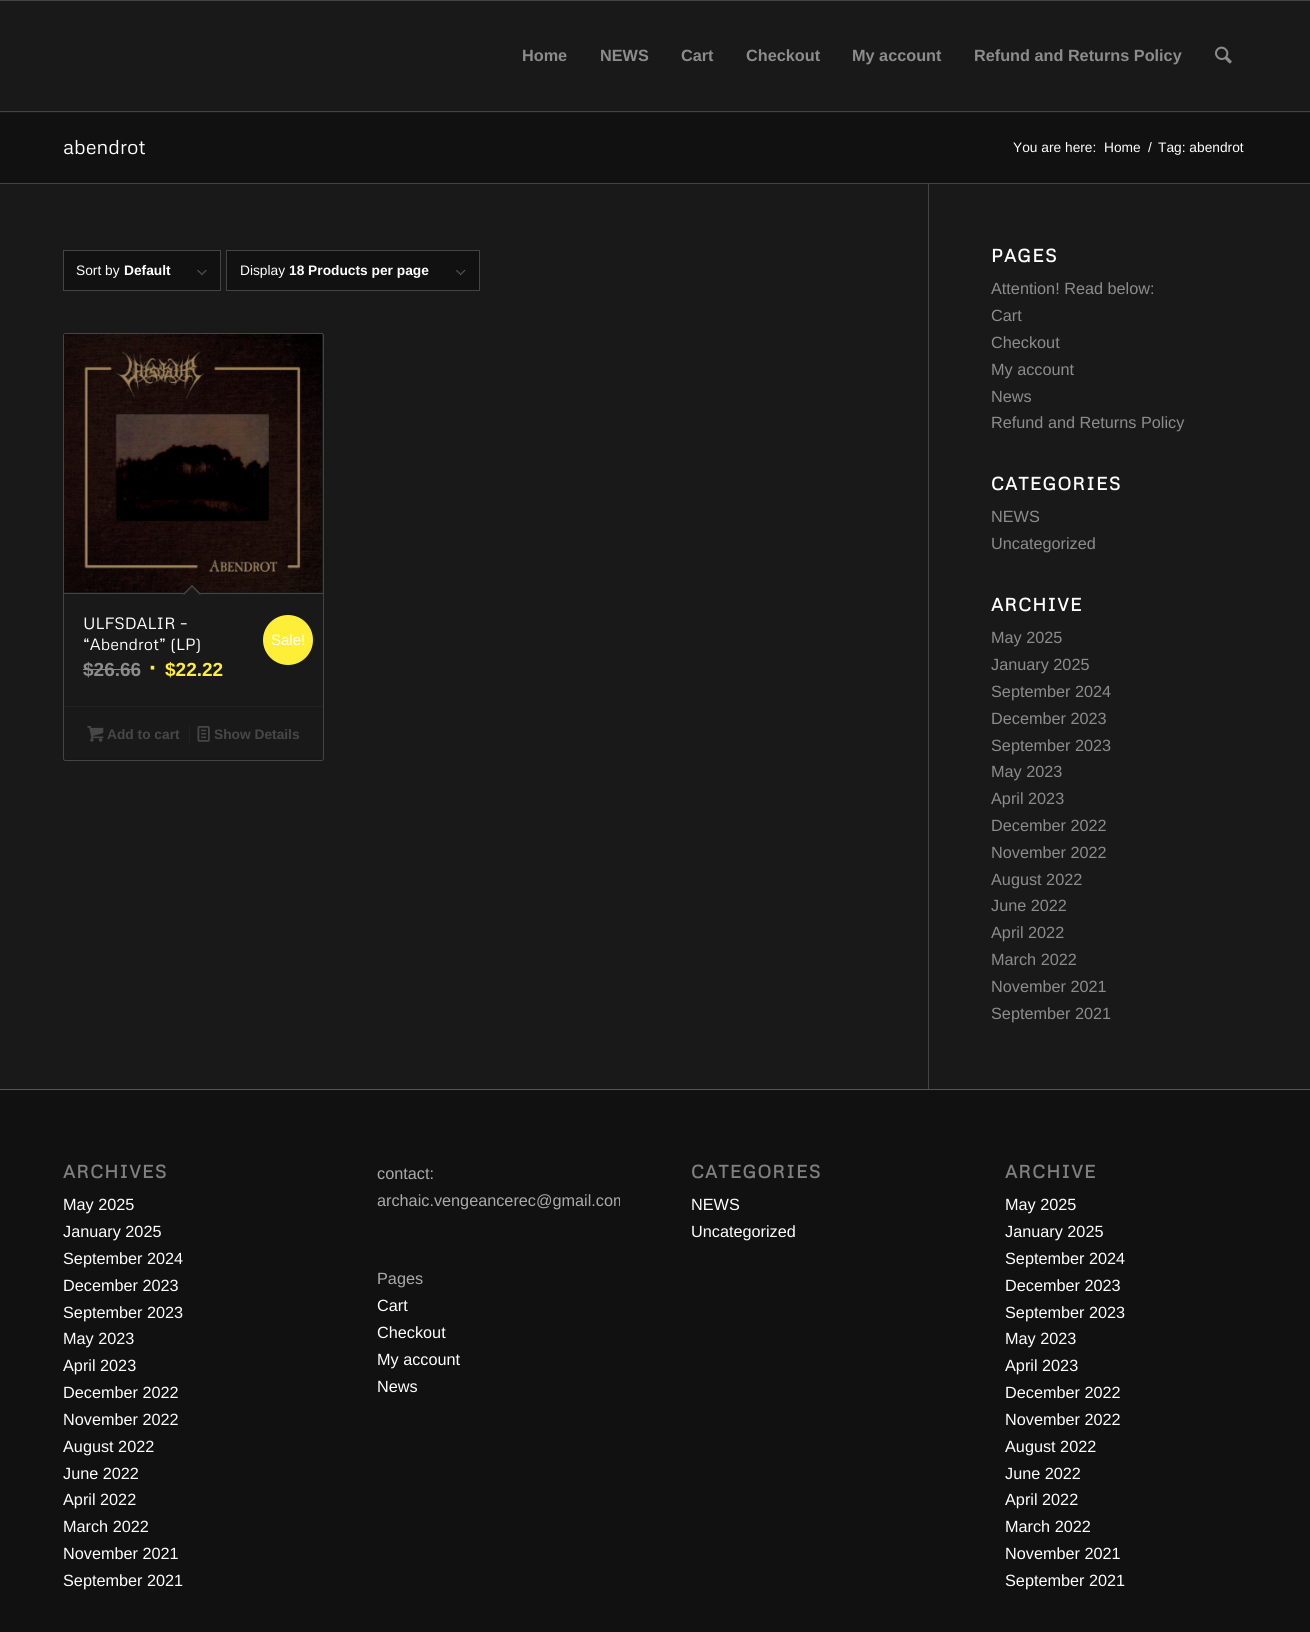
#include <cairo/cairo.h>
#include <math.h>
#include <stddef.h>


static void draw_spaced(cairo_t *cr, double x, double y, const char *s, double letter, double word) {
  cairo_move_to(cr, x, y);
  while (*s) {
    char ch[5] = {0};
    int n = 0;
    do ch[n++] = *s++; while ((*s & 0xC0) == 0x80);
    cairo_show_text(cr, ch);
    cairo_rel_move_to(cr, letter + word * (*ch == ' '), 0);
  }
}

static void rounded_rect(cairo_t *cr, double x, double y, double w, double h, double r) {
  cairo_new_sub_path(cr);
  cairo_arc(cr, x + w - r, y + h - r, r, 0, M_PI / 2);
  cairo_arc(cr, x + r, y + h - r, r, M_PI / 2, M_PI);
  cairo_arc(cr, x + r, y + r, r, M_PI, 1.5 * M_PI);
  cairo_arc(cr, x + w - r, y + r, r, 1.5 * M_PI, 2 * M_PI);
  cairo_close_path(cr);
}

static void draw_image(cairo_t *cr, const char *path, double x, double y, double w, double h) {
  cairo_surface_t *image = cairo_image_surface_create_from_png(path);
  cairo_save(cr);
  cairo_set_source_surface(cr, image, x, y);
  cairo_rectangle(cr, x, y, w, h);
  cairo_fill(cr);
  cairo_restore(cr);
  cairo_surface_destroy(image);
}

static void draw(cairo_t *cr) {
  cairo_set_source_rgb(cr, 25 / 255.0, 25 / 255.0, 25 / 255.0);
  cairo_paint(cr);
  cairo_set_source_rgb(cr, 68 / 255.0, 68 / 255.0, 68 / 255.0);
  cairo_rectangle(cr, 0, 0, 1310, 1);
  cairo_fill(cr);
  cairo_rectangle(cr, 0, 111, 1310, 1);
  cairo_fill(cr);
  draw_image(cr, "images/1.png", 1215, 46, 17, 18);
  cairo_set_source_rgb(cr, 17 / 255.0, 17 / 255.0, 17 / 255.0);
  cairo_rectangle(cr, 0, 113, 1310, 70);
  cairo_fill(cr);
  cairo_set_source_rgb(cr, 68 / 255.0, 68 / 255.0, 68 / 255.0);
  cairo_rectangle(cr, 0, 183, 1310, 1);
  cairo_fill(cr);
  cairo_set_source_rgb(cr, 17 / 255.0, 17 / 255.0, 17 / 255.0);
  cairo_rectangle(cr, 64, 251, 156, 39);
  cairo_fill(cr);
  draw_image(cr, "images/2.png", 197, 270, 10, 6);
  cairo_rectangle(cr, 63.5, 250.5, 157, 40);
  cairo_set_source_rgb(cr, 68 / 255.0, 68 / 255.0, 68 / 255.0);
  cairo_set_line_width(cr, 1);
  cairo_stroke(cr);
  cairo_set_source_rgb(cr, 17 / 255.0, 17 / 255.0, 17 / 255.0);
  cairo_rectangle(cr, 227, 251, 252, 39);
  cairo_fill(cr);
  draw_image(cr, "images/3.png", 456, 270, 10, 6);
  cairo_rectangle(cr, 226.5, 250.5, 253, 40);
  cairo_set_source_rgb(cr, 68 / 255.0, 68 / 255.0, 68 / 255.0);
  cairo_stroke(cr);
  rounded_rect(cr, 63.5, 333.5, 260, 427, 2);
  cairo_stroke(cr);
  draw_image(cr, "images/4.png", 64, 334, 258, 259);
  cairo_rectangle(cr, 64, 593, 259, 1);
  cairo_fill(cr);
  cairo_set_source_rgb(cr, 25 / 255.0, 25 / 255.0, 25 / 255.0);
  cairo_new_path(cr);
  cairo_move_to(cr, 192, 585);
  cairo_line_to(cr, 201, 594);
  cairo_line_to(cr, 192, 602.5);
  cairo_line_to(cr, 183, 594);
  cairo_close_path(cr);
  cairo_fill(cr);
  cairo_set_source_rgb(cr, 68 / 255.0, 68 / 255.0, 68 / 255.0);
  cairo_new_path(cr);
  cairo_move_to(cr, 192, 585);
  cairo_line_to(cr, 201, 594);
  cairo_line_to(cr, 200, 595);
  cairo_line_to(cr, 191, 586);
  cairo_close_path(cr);
  cairo_fill(cr);
  cairo_new_path(cr);
  cairo_move_to(cr, 192, 585);
  cairo_line_to(cr, 193, 586);
  cairo_line_to(cr, 184, 595);
  cairo_line_to(cr, 183, 594);
  cairo_close_path(cr);
  cairo_fill(cr);
  cairo_set_source_rgb(cr, 1, 238 / 255.0, 56 / 255.0);
  cairo_arc(cr, 288, 640, 25, 0, 2 * M_PI);
  cairo_fill(cr);
  cairo_set_source_rgb(cr, 140 / 255.0, 140 / 255.0, 140 / 255.0);
  cairo_rectangle(cr, 83, 669, 57, 1);
  cairo_fill(cr);
  cairo_set_source_rgba(cr, 17 / 255.0, 17 / 255.0, 17 / 255.0, 0.2);
  cairo_rectangle(cr, 64, 759, 259, 1);
  cairo_fill(cr);
  cairo_set_source_rgb(cr, 34 / 255.0, 34 / 255.0, 34 / 255.0);
  cairo_rectangle(cr, 64, 706, 259, 1);
  cairo_fill(cr);
  draw_image(cr, "images/5.png", 87, 726, 17, 16);
  cairo_rectangle(cr, 189, 726, 1, 18);
  cairo_fill(cr);
  draw_image(cr, "images/6.png", 197, 726, 13, 16);
  cairo_set_source_rgb(cr, 68 / 255.0, 68 / 255.0, 68 / 255.0);
  cairo_rectangle(cr, 928, 184, 1, 905);
  cairo_fill(cr);
  cairo_set_source_rgb(cr, 17 / 255.0, 17 / 255.0, 17 / 255.0);
  cairo_rectangle(cr, 0, 1090, 1310, 542);
  cairo_fill(cr);
  cairo_set_source_rgb(cr, 85 / 255.0, 85 / 255.0, 85 / 255.0);
  cairo_rectangle(cr, 0, 1089, 1310, 1);
  cairo_fill(cr);
  cairo_select_font_face(cr, "Liberation Sans", CAIRO_FONT_SLANT_NORMAL, CAIRO_FONT_WEIGHT_BOLD);
  cairo_set_font_size(cr, 16.25);
  cairo_set_source_rgb(cr, 140 / 255.0, 140 / 255.0, 140 / 255.0);
  cairo_move_to(cr, 522, 61);
  cairo_show_text(cr, "Home");
  cairo_move_to(cr, 600, 61);
  cairo_show_text(cr, "NEWS");
  cairo_move_to(cr, 681, 61);
  cairo_show_text(cr, "Cart");
  cairo_move_to(cr, 746, 61);
  cairo_show_text(cr, "Checkout");
  cairo_move_to(cr, 852, 61);
  cairo_show_text(cr, "My account");
  cairo_move_to(cr, 974, 61);
  cairo_show_text(cr, "Refund and Returns Policy");
  cairo_select_font_face(cr, "Metrophobic", CAIRO_FONT_SLANT_NORMAL, CAIRO_FONT_WEIGHT_NORMAL);
  cairo_set_font_size(cr, 20);
  cairo_set_source_rgb(cr, 1, 1, 1);
  cairo_move_to(cr, 63, 154);
  cairo_show_text(cr, "abendrot");
  cairo_select_font_face(cr, "Liberation Sans", CAIRO_FONT_SLANT_NORMAL, CAIRO_FONT_WEIGHT_NORMAL);
  cairo_set_font_size(cr, 13.75);
  cairo_move_to(cr, 1013, 152);
  cairo_show_text(cr, "You are here:");
  cairo_move_to(cr, 1104, 152);
  cairo_show_text(cr, "Home");
  cairo_move_to(cr, 1148, 152);
  cairo_show_text(cr, "/");
  cairo_move_to(cr, 1158, 152);
  cairo_show_text(cr, "Tag: abendrot");
  cairo_move_to(cr, 76, 275);
  cairo_show_text(cr, "Sort by");
  cairo_select_font_face(cr, "Liberation Sans", CAIRO_FONT_SLANT_NORMAL, CAIRO_FONT_WEIGHT_BOLD);
  cairo_move_to(cr, 124, 275);
  cairo_show_text(cr, "Default");
  cairo_select_font_face(cr, "Liberation Sans", CAIRO_FONT_SLANT_NORMAL, CAIRO_FONT_WEIGHT_NORMAL);
  cairo_move_to(cr, 240, 275);
  cairo_show_text(cr, "Display");
  cairo_select_font_face(cr, "Liberation Sans", CAIRO_FONT_SLANT_NORMAL, CAIRO_FONT_WEIGHT_BOLD);
  cairo_move_to(cr, 289, 275);
  cairo_show_text(cr, "18 Products per page");
  cairo_select_font_face(cr, "Metrophobic", CAIRO_FONT_SLANT_NORMAL, CAIRO_FONT_WEIGHT_NORMAL);
  cairo_set_font_size(cr, 16.25);
  cairo_move_to(cr, 83, 629);
  cairo_show_text(cr, "ULFSDALIR –");
  cairo_move_to(cr, 83, 650);
  cairo_show_text(cr, "“Abendrot” (LP)");
  cairo_select_font_face(cr, "Liberation Sans", CAIRO_FONT_SLANT_NORMAL, CAIRO_FONT_WEIGHT_NORMAL);
  cairo_set_font_size(cr, 15);
  cairo_move_to(cr, 271, 645);
  cairo_show_text(cr, "Sale!");
  cairo_select_font_face(cr, "Liberation Sans", CAIRO_FONT_SLANT_NORMAL, CAIRO_FONT_WEIGHT_BOLD);
  cairo_set_font_size(cr, 19);
  cairo_set_source_rgb(cr, 140 / 255.0, 140 / 255.0, 140 / 255.0);
  cairo_move_to(cr, 83, 676);
  cairo_show_text(cr, "$26.66");
  cairo_set_font_size(cr, 25);
  cairo_set_source_rgb(cr, 1, 238 / 255.0, 56 / 255.0);
  cairo_move_to(cr, 149, 676);
  cairo_show_text(cr, "∙");
  cairo_set_font_size(cr, 19);
  cairo_move_to(cr, 165, 676);
  cairo_show_text(cr, "$22.22");
  cairo_set_font_size(cr, 13.75);
  cairo_set_source_rgb(cr, 71 / 255.0, 71 / 255.0, 71 / 255.0);
  cairo_move_to(cr, 107, 739);
  cairo_show_text(cr, "Add to cart");
  cairo_move_to(cr, 214, 739);
  cairo_show_text(cr, "Show Details");
  cairo_select_font_face(cr, "Metrophobic", CAIRO_FONT_SLANT_NORMAL, CAIRO_FONT_WEIGHT_BOLD);
  cairo_set_font_size(cr, 18);
  cairo_set_source_rgb(cr, 1, 1, 1);
  draw_spaced(cr, 991, 262, "PAGES", 1.25, 0);
  cairo_select_font_face(cr, "Liberation Sans", CAIRO_FONT_SLANT_NORMAL, CAIRO_FONT_WEIGHT_NORMAL);
  cairo_set_font_size(cr, 16.25);
  cairo_set_source_rgb(cr, 140 / 255.0, 140 / 255.0, 140 / 255.0);
  cairo_move_to(cr, 991, 294);
  cairo_show_text(cr, "Attention! Read below:");
  cairo_move_to(cr, 991, 321);
  cairo_show_text(cr, "Cart");
  cairo_move_to(cr, 991, 348);
  cairo_show_text(cr, "Checkout");
  cairo_move_to(cr, 991, 375);
  cairo_show_text(cr, "My account");
  cairo_move_to(cr, 991, 402);
  cairo_show_text(cr, "News");
  cairo_move_to(cr, 991, 428);
  cairo_show_text(cr, "Refund and Returns Policy");
  cairo_select_font_face(cr, "Metrophobic", CAIRO_FONT_SLANT_NORMAL, CAIRO_FONT_WEIGHT_BOLD);
  cairo_set_font_size(cr, 18);
  cairo_set_source_rgb(cr, 1, 1, 1);
  draw_spaced(cr, 991, 490, "CATEGORIES", 1.25, 0);
  cairo_select_font_face(cr, "Liberation Sans", CAIRO_FONT_SLANT_NORMAL, CAIRO_FONT_WEIGHT_NORMAL);
  cairo_set_font_size(cr, 16.25);
  cairo_set_source_rgb(cr, 140 / 255.0, 140 / 255.0, 140 / 255.0);
  cairo_move_to(cr, 991, 522);
  cairo_show_text(cr, "NEWS");
  cairo_move_to(cr, 991, 549);
  cairo_show_text(cr, "Uncategorized");
  cairo_select_font_face(cr, "Metrophobic", CAIRO_FONT_SLANT_NORMAL, CAIRO_FONT_WEIGHT_BOLD);
  cairo_set_font_size(cr, 18);
  cairo_set_source_rgb(cr, 1, 1, 1);
  draw_spaced(cr, 991, 611, "ARCHIVE", 1.25, 0);
  cairo_select_font_face(cr, "Liberation Sans", CAIRO_FONT_SLANT_NORMAL, CAIRO_FONT_WEIGHT_NORMAL);
  cairo_set_font_size(cr, 16.25);
  cairo_set_source_rgb(cr, 140 / 255.0, 140 / 255.0, 140 / 255.0);
  cairo_move_to(cr, 991, 643);
  cairo_show_text(cr, "May 2025");
  cairo_move_to(cr, 991, 670);
  cairo_show_text(cr, "January 2025");
  cairo_move_to(cr, 991, 697);
  cairo_show_text(cr, "September 2024");
  cairo_move_to(cr, 991, 724);
  cairo_show_text(cr, "December 2023");
  cairo_move_to(cr, 991, 751);
  cairo_show_text(cr, "September 2023");
  cairo_move_to(cr, 991, 777);
  cairo_show_text(cr, "May 2023");
  cairo_move_to(cr, 991, 804);
  cairo_show_text(cr, "April 2023");
  cairo_move_to(cr, 991, 831);
  cairo_show_text(cr, "December 2022");
  cairo_move_to(cr, 991, 858);
  cairo_show_text(cr, "November 2022");
  cairo_move_to(cr, 991, 885);
  cairo_show_text(cr, "August 2022");
  cairo_move_to(cr, 991, 911);
  cairo_show_text(cr, "June 2022");
  cairo_move_to(cr, 991, 938);
  cairo_show_text(cr, "April 2022");
  cairo_move_to(cr, 991, 965);
  cairo_show_text(cr, "March 2022");
  cairo_move_to(cr, 991, 992);
  cairo_show_text(cr, "November 2021");
  cairo_move_to(cr, 991, 1019);
  cairo_show_text(cr, "September 2021");
  cairo_select_font_face(cr, "Metrophobic", CAIRO_FONT_SLANT_NORMAL, CAIRO_FONT_WEIGHT_BOLD);
  cairo_set_font_size(cr, 18);
  cairo_set_source_rgb(cr, 128 / 255.0, 128 / 255.0, 128 / 255.0);
  draw_spaced(cr, 63, 1178, "ARCHIVES", 1.25, 0);
  cairo_select_font_face(cr, "Liberation Sans", CAIRO_FONT_SLANT_NORMAL, CAIRO_FONT_WEIGHT_NORMAL);
  cairo_set_font_size(cr, 16.25);
  cairo_set_source_rgb(cr, 1, 1, 1);
  cairo_move_to(cr, 63, 1210);
  cairo_show_text(cr, "May 2025");
  cairo_move_to(cr, 63, 1237);
  cairo_show_text(cr, "January 2025");
  cairo_move_to(cr, 63, 1264);
  cairo_show_text(cr, "September 2024");
  cairo_move_to(cr, 63, 1291);
  cairo_show_text(cr, "December 2023");
  cairo_move_to(cr, 63, 1318);
  cairo_show_text(cr, "September 2023");
  cairo_move_to(cr, 63, 1344);
  cairo_show_text(cr, "May 2023");
  cairo_move_to(cr, 63, 1371);
  cairo_show_text(cr, "April 2023");
  cairo_move_to(cr, 63, 1398);
  cairo_show_text(cr, "December 2022");
  cairo_move_to(cr, 63, 1425);
  cairo_show_text(cr, "November 2022");
  cairo_move_to(cr, 63, 1452);
  cairo_show_text(cr, "August 2022");
  cairo_move_to(cr, 63, 1479);
  cairo_show_text(cr, "June 2022");
  cairo_move_to(cr, 63, 1505);
  cairo_show_text(cr, "April 2022");
  cairo_move_to(cr, 63, 1532);
  cairo_show_text(cr, "March 2022");
  cairo_move_to(cr, 63, 1559);
  cairo_show_text(cr, "November 2021");
  cairo_move_to(cr, 63, 1586);
  cairo_show_text(cr, "September 2021");
  cairo_set_source_rgb(cr, 170 / 255.0, 170 / 255.0, 170 / 255.0);
  cairo_move_to(cr, 377, 1179);
  cairo_show_text(cr, "contact:");
  cairo_save(cr);
  cairo_rectangle(cr, 376, 1146, 244, 82);
  cairo_clip(cr);
  cairo_move_to(cr, 377, 1206);
  cairo_show_text(cr, "archaic.vengeancerec@gmail.com");
  cairo_restore(cr);
  cairo_move_to(cr, 377, 1284);
  cairo_show_text(cr, "Pages");
  cairo_set_source_rgb(cr, 1, 1, 1);
  cairo_move_to(cr, 377, 1311);
  cairo_show_text(cr, "Cart");
  cairo_move_to(cr, 377, 1338);
  cairo_show_text(cr, "Checkout");
  cairo_move_to(cr, 377, 1365);
  cairo_show_text(cr, "My account");
  cairo_move_to(cr, 377, 1392);
  cairo_show_text(cr, "News");
  cairo_select_font_face(cr, "Metrophobic", CAIRO_FONT_SLANT_NORMAL, CAIRO_FONT_WEIGHT_BOLD);
  cairo_set_font_size(cr, 18);
  cairo_set_source_rgb(cr, 128 / 255.0, 128 / 255.0, 128 / 255.0);
  draw_spaced(cr, 691, 1178, "CATEGORIES", 1.25, 0);
  cairo_select_font_face(cr, "Liberation Sans", CAIRO_FONT_SLANT_NORMAL, CAIRO_FONT_WEIGHT_NORMAL);
  cairo_set_font_size(cr, 16.25);
  cairo_set_source_rgb(cr, 1, 1, 1);
  cairo_move_to(cr, 691, 1210);
  cairo_show_text(cr, "NEWS");
  cairo_move_to(cr, 691, 1237);
  cairo_show_text(cr, "Uncategorized");
  cairo_select_font_face(cr, "Metrophobic", CAIRO_FONT_SLANT_NORMAL, CAIRO_FONT_WEIGHT_BOLD);
  cairo_set_font_size(cr, 18);
  cairo_set_source_rgb(cr, 128 / 255.0, 128 / 255.0, 128 / 255.0);
  draw_spaced(cr, 1005, 1178, "ARCHIVE", 1.25, 0);
  cairo_select_font_face(cr, "Liberation Sans", CAIRO_FONT_SLANT_NORMAL, CAIRO_FONT_WEIGHT_NORMAL);
  cairo_set_font_size(cr, 16.25);
  cairo_set_source_rgb(cr, 1, 1, 1);
  cairo_move_to(cr, 1005, 1210);
  cairo_show_text(cr, "May 2025");
  cairo_move_to(cr, 1005, 1237);
  cairo_show_text(cr, "January 2025");
  cairo_move_to(cr, 1005, 1264);
  cairo_show_text(cr, "September 2024");
  cairo_move_to(cr, 1005, 1291);
  cairo_show_text(cr, "December 2023");
  cairo_move_to(cr, 1005, 1318);
  cairo_show_text(cr, "September 2023");
  cairo_move_to(cr, 1005, 1344);
  cairo_show_text(cr, "May 2023");
  cairo_move_to(cr, 1005, 1371);
  cairo_show_text(cr, "April 2023");
  cairo_move_to(cr, 1005, 1398);
  cairo_show_text(cr, "December 2022");
  cairo_move_to(cr, 1005, 1425);
  cairo_show_text(cr, "November 2022");
  cairo_move_to(cr, 1005, 1452);
  cairo_show_text(cr, "August 2022");
  cairo_move_to(cr, 1005, 1479);
  cairo_show_text(cr, "June 2022");
  cairo_move_to(cr, 1005, 1505);
  cairo_show_text(cr, "April 2022");
  cairo_move_to(cr, 1005, 1532);
  cairo_show_text(cr, "March 2022");
  cairo_move_to(cr, 1005, 1559);
  cairo_show_text(cr, "November 2021");
  cairo_move_to(cr, 1005, 1586);
  cairo_show_text(cr, "September 2021");
}

int main(void) {
  cairo_surface_t *surface = cairo_image_surface_create(CAIRO_FORMAT_RGB24, 1310, 1632);
  cairo_t *cr = cairo_create(surface);
  cairo_font_options_t *options = cairo_font_options_create();
  cairo_font_options_set_hint_metrics(options, CAIRO_HINT_METRICS_OFF);
  cairo_font_options_set_hint_style(options, CAIRO_HINT_STYLE_NONE);
  cairo_set_font_options(cr, options);
  cairo_set_miter_limit(cr, 4);
  draw(cr);
  cairo_surface_write_to_png(surface, "out.png");
  cairo_font_options_destroy(options);
  cairo_destroy(cr);
  cairo_surface_destroy(surface);
  return 0;
}
